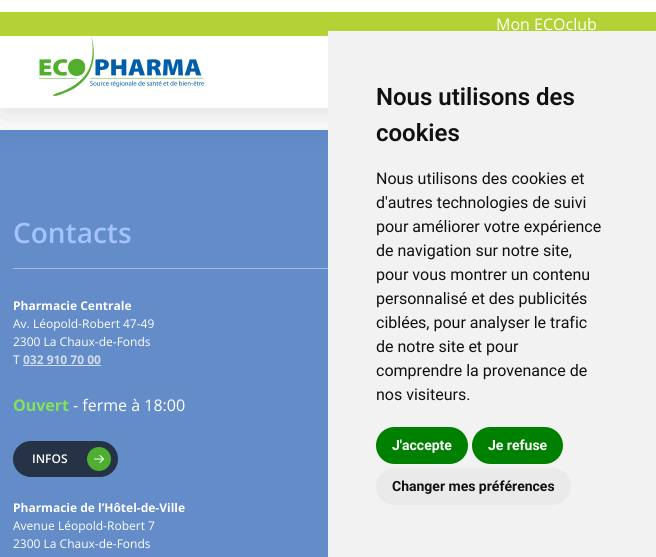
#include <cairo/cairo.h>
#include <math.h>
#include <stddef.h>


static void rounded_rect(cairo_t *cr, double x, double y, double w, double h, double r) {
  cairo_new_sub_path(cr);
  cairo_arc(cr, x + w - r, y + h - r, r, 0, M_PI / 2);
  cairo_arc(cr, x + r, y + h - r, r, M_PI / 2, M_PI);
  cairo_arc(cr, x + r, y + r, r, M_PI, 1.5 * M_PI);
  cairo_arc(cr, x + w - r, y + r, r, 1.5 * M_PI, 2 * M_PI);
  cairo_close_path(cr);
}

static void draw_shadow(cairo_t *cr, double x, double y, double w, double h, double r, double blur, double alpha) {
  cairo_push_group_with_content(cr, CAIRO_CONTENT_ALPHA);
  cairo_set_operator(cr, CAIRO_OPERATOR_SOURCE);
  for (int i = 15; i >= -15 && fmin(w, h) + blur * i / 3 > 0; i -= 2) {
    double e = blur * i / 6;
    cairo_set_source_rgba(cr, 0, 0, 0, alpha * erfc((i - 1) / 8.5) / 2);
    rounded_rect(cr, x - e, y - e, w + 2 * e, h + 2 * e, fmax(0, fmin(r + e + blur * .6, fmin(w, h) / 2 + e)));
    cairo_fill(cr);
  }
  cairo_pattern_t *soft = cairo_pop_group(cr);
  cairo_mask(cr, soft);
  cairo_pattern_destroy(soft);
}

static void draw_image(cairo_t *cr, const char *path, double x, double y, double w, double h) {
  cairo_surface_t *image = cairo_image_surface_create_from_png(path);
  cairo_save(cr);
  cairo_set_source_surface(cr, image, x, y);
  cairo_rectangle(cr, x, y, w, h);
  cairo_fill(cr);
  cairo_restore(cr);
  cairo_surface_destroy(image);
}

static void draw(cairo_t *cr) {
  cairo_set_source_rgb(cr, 1, 1, 1);
  cairo_paint(cr);
  cairo_set_source_rgb(cr, 99 / 255.0, 140 / 255.0, 200 / 255.0);
  cairo_rectangle(cr, 0, 130, 328, 427);
  cairo_fill(cr);
  cairo_set_source_rgb(cr, 0, 0, 0);
  draw_shadow(cr, 0, 3, 656, 108, 0, 22.5, 0.15);
  cairo_set_source_rgb(cr, 1, 1, 1);
  cairo_rectangle(cr, 0, 0, 656, 108);
  cairo_fill(cr);
  cairo_set_source_rgb(cr, 178 / 255.0, 210 / 255.0, 53 / 255.0);
  cairo_rectangle(cr, 0, 12, 656, 24);
  cairo_fill(cr);
  draw_image(cr, "images/1.png", 39, 36, 165, 60);
  cairo_set_source_rgb(cr, 163 / 255.0, 187 / 255.0, 223 / 255.0);
  cairo_rectangle(cr, 13, 268, 315, 1);
  cairo_fill(cr);
  cairo_set_source_rgb(cr, 208 / 255.0, 221 / 255.0, 239 / 255.0);
  cairo_rectangle(cr, 23, 365, 78, 1);
  cairo_fill(cr);
  cairo_set_source_rgb(cr, 38 / 255.0, 50 / 255.0, 69 / 255.0);
  rounded_rect(cr, 13, 441, 105, 36, 18);
  cairo_fill(cr);
  cairo_set_source_rgb(cr, 79 / 255.0, 175 / 255.0, 48 / 255.0);
  cairo_arc(cr, 99, 459, 12, 0, 2 * M_PI);
  cairo_fill(cr);
  draw_image(cr, "images/2.png", 94, 455, 10, 8);
  cairo_set_source_rgb(cr, 242 / 255.0, 242 / 255.0, 242 / 255.0);
  cairo_rectangle(cr, 328, 31, 328, 526);
  cairo_fill(cr);
  cairo_set_source_rgb(cr, 0, 128 / 255.0, 0);
  rounded_rect(cr, 376, 427, 92, 37, 18.5);
  cairo_fill(cr);
  rounded_rect(cr, 472, 427, 91, 37, 18.5);
  cairo_fill(cr);
  cairo_set_source_rgb(cr, 234 / 255.0, 234 / 255.0, 234 / 255.0);
  rounded_rect(cr, 376, 468, 195, 37, 18.5);
  cairo_fill(cr);
  cairo_select_font_face(cr, "Open Sans", CAIRO_FONT_SLANT_NORMAL, CAIRO_FONT_WEIGHT_NORMAL);
  cairo_set_font_size(cr, 16);
  cairo_set_source_rgb(cr, 1, 1, 1);
  cairo_move_to(cr, 496, 30);
  cairo_show_text(cr, "Mon ECOclub");
  cairo_select_font_face(cr, "Open Sans SemiBold", CAIRO_FONT_SLANT_NORMAL, CAIRO_FONT_WEIGHT_NORMAL);
  cairo_set_font_size(cr, 28);
  cairo_set_source_rgb(cr, 163 / 255.0, 195 / 255.0, 1);
  cairo_move_to(cr, 13, 243);
  cairo_show_text(cr, "Contacts");
  cairo_select_font_face(cr, "Open Sans", CAIRO_FONT_SLANT_NORMAL, CAIRO_FONT_WEIGHT_BOLD);
  cairo_set_font_size(cr, 12);
  cairo_set_source_rgb(cr, 1, 1, 1);
  cairo_move_to(cr, 13, 310);
  cairo_show_text(cr, "Pharmacie Centrale");
  cairo_select_font_face(cr, "Open Sans", CAIRO_FONT_SLANT_NORMAL, CAIRO_FONT_WEIGHT_NORMAL);
  cairo_move_to(cr, 13, 328);
  cairo_show_text(cr, "Av. Léopold-Robert 47-49");
  cairo_move_to(cr, 13, 346);
  cairo_show_text(cr, "2300 La Chaux-de-Fonds");
  cairo_move_to(cr, 13, 364);
  cairo_show_text(cr, "T");
  cairo_select_font_face(cr, "Open Sans", CAIRO_FONT_SLANT_NORMAL, CAIRO_FONT_WEIGHT_BOLD);
  cairo_set_source_rgb(cr, 208 / 255.0, 221 / 255.0, 239 / 255.0);
  cairo_move_to(cr, 23, 364);
  cairo_show_text(cr, "032 910 70 00");
  cairo_set_font_size(cr, 16);
  cairo_set_source_rgb(cr, 129 / 255.0, 226 / 255.0, 91 / 255.0);
  cairo_move_to(cr, 13, 411);
  cairo_show_text(cr, "Ouvert");
  cairo_select_font_face(cr, "Open Sans", CAIRO_FONT_SLANT_NORMAL, CAIRO_FONT_WEIGHT_NORMAL);
  cairo_set_source_rgb(cr, 1, 1, 1);
  cairo_move_to(cr, 73, 411);
  cairo_show_text(cr, "- ferme à 18:00");
  cairo_select_font_face(cr, "Open Sans SemiBold", CAIRO_FONT_SLANT_NORMAL, CAIRO_FONT_WEIGHT_NORMAL);
  cairo_set_font_size(cr, 12);
  cairo_move_to(cr, 32, 463);
  cairo_show_text(cr, "INFOS");
  cairo_select_font_face(cr, "Open Sans", CAIRO_FONT_SLANT_NORMAL, CAIRO_FONT_WEIGHT_BOLD);
  cairo_move_to(cr, 13, 512);
  cairo_show_text(cr, "Pharmacie de l’Hôtel-de-Ville");
  cairo_select_font_face(cr, "Open Sans", CAIRO_FONT_SLANT_NORMAL, CAIRO_FONT_WEIGHT_NORMAL);
  cairo_move_to(cr, 13, 530);
  cairo_show_text(cr, "Avenue Léopold-Robert 7");
  cairo_move_to(cr, 13, 548);
  cairo_show_text(cr, "2300 La Chaux-de-Fonds");
  cairo_select_font_face(cr, "Roboto SemiBold", CAIRO_FONT_SLANT_NORMAL, CAIRO_FONT_WEIGHT_NORMAL);
  cairo_set_font_size(cr, 24);
  cairo_set_source_rgb(cr, 17 / 255.0, 17 / 255.0, 17 / 255.0);
  cairo_move_to(cr, 376, 105);
  cairo_show_text(cr, "Nous utilisons des");
  cairo_move_to(cr, 376, 141);
  cairo_show_text(cr, "cookies");
  cairo_select_font_face(cr, "Roboto", CAIRO_FONT_SLANT_NORMAL, CAIRO_FONT_WEIGHT_NORMAL);
  cairo_set_font_size(cr, 16);
  cairo_move_to(cr, 376, 184);
  cairo_show_text(cr, "Nous utilisons des cookies et");
  cairo_move_to(cr, 376, 208);
  cairo_show_text(cr, "d'autres technologies de suivi");
  cairo_move_to(cr, 376, 232);
  cairo_show_text(cr, "pour améliorer votre expérience");
  cairo_move_to(cr, 376, 256);
  cairo_show_text(cr, "de navigation sur notre site,");
  cairo_move_to(cr, 376, 280);
  cairo_show_text(cr, "pour vous montrer un contenu");
  cairo_move_to(cr, 376, 304);
  cairo_show_text(cr, "personnalisé et des publicités");
  cairo_move_to(cr, 376, 328);
  cairo_show_text(cr, "ciblées, pour analyser le trafic");
  cairo_move_to(cr, 376, 352);
  cairo_show_text(cr, "de notre site et pour");
  cairo_move_to(cr, 376, 376);
  cairo_show_text(cr, "comprendre la provenance de");
  cairo_move_to(cr, 376, 400);
  cairo_show_text(cr, "nos visiteurs.");
  cairo_select_font_face(cr, "Roboto", CAIRO_FONT_SLANT_NORMAL, CAIRO_FONT_WEIGHT_BOLD);
  cairo_set_font_size(cr, 14);
  cairo_set_source_rgb(cr, 1, 1, 1);
  cairo_move_to(cr, 392, 450);
  cairo_show_text(cr, "J'accepte");
  cairo_move_to(cr, 488, 450);
  cairo_show_text(cr, "Je refuse");
  cairo_set_source_rgb(cr, 17 / 255.0, 17 / 255.0, 17 / 255.0);
  cairo_move_to(cr, 392, 491);
  cairo_show_text(cr, "Changer mes préférences");
}

int main(void) {
  cairo_surface_t *surface = cairo_image_surface_create(CAIRO_FORMAT_RGB24, 656, 557);
  cairo_t *cr = cairo_create(surface);
  cairo_font_options_t *options = cairo_font_options_create();
  cairo_font_options_set_hint_metrics(options, CAIRO_HINT_METRICS_OFF);
  cairo_font_options_set_hint_style(options, CAIRO_HINT_STYLE_NONE);
  cairo_set_font_options(cr, options);
  cairo_set_miter_limit(cr, 4);
  draw(cr);
  cairo_surface_write_to_png(surface, "out.png");
  cairo_font_options_destroy(options);
  cairo_destroy(cr);
  cairo_surface_destroy(surface);
  return 0;
}
